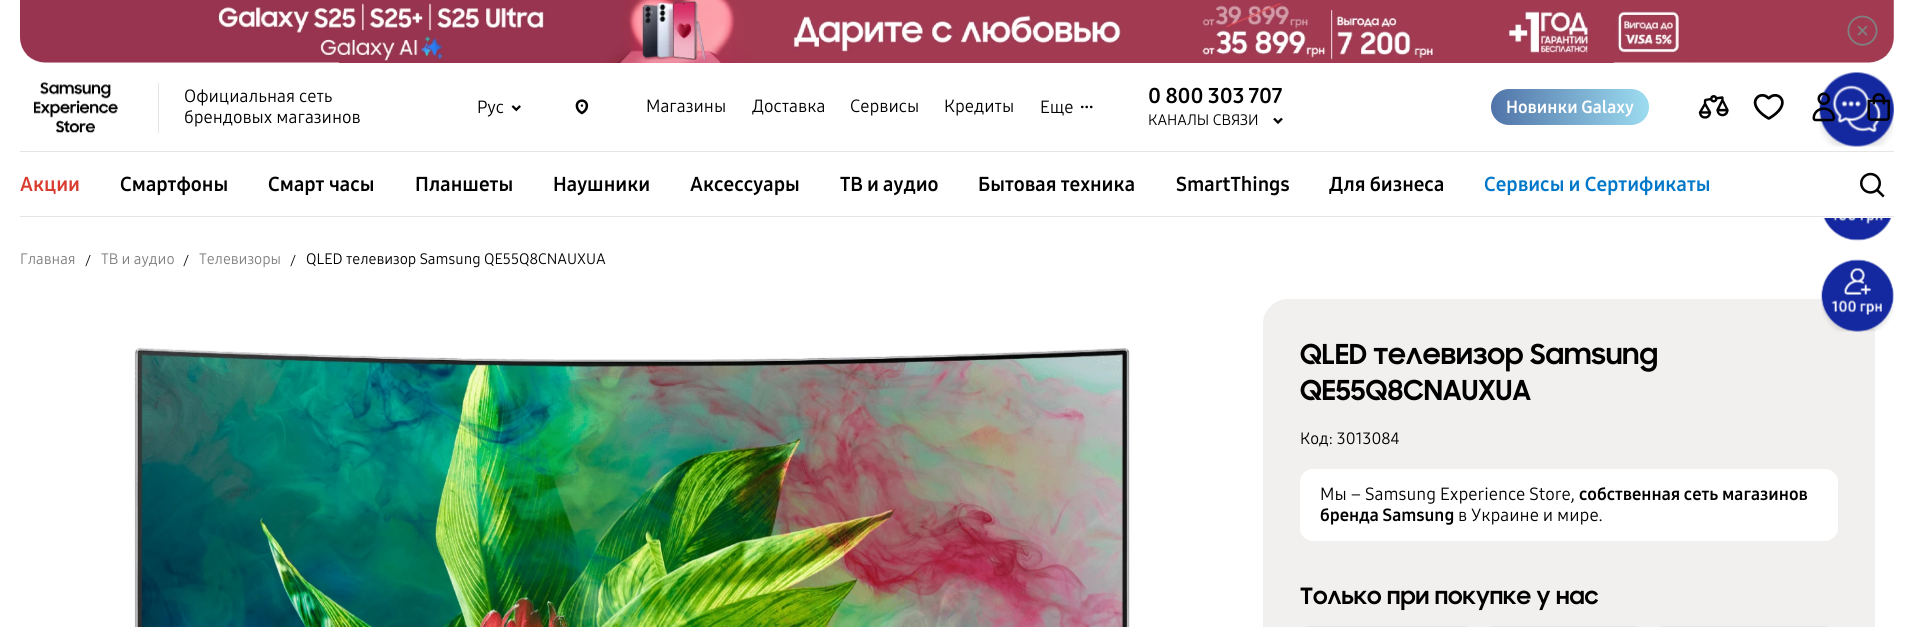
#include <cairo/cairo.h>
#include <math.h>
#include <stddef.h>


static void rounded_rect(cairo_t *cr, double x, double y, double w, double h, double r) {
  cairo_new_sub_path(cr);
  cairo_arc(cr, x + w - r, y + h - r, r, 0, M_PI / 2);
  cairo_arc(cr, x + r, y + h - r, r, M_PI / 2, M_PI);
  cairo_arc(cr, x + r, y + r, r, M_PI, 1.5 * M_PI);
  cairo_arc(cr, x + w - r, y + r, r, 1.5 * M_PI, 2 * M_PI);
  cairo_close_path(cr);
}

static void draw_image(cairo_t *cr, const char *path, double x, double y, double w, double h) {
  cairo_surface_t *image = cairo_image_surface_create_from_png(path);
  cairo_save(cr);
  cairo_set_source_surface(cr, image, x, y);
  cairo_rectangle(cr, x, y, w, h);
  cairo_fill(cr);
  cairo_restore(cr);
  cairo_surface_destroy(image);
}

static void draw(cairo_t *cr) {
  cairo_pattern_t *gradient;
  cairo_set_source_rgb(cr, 1, 1, 1);
  cairo_paint(cr);
  cairo_set_source_rgb(cr, 242 / 255.0, 240 / 255.0, 239 / 255.0);
  cairo_new_path(cr);
  cairo_move_to(cr, 20, 0);
  cairo_line_to(cr, 1894, 0);
  cairo_line_to(cr, 1894, 38);
  cairo_curve_to(cr, 1894, 52, 1883, 63, 1869, 63);
  cairo_line_to(cr, 45, 63);
  cairo_curve_to(cr, 31, 63, 20, 52, 20, 38);
  cairo_close_path(cr);
  cairo_fill(cr);
  draw_image(cr, "images/1.png", 20, 0, 1874, 63);
  draw_image(cr, "images/2.png", 1847, 15, 31, 31);
  cairo_set_source_rgb(cr, 229 / 255.0, 229 / 255.0, 229 / 255.0);
  cairo_rectangle(cr, 20, 151, 1874, 1);
  cairo_fill(cr);
  cairo_rectangle(cr, 158, 83, 1, 50);
  cairo_fill(cr);
  draw_image(cr, "images/3.png", 34, 82, 84, 51);
  draw_image(cr, "images/4.png", 511, 105, 10, 7);
  draw_image(cr, "images/5.png", 575, 99, 14, 16);
  cairo_new_path(cr);
  cairo_move_to(cr, 1274, 118.5);
  cairo_line_to(cr, 1278, 122.5);
  cairo_line_to(cr, 1282, 118.5);
  cairo_set_source_rgb(cr, 0, 0, 0);
  cairo_set_line_width(cr, 2.3);
  cairo_stroke(cr);
  gradient = cairo_pattern_create_linear(1429, 116, 1677, 100);
  cairo_pattern_add_color_stop_rgba(gradient, 0, 50 / 255.0, 74 / 255.0, 139 / 255.0, 1);
  cairo_pattern_add_color_stop_rgba(gradient, 1, 170 / 255.0, 239 / 255.0, 253 / 255.0, 1);
  cairo_set_source(cr, gradient);
  cairo_pattern_destroy(gradient);
  rounded_rect(cr, 1491, 89, 158, 36, 18);
  cairo_fill(cr);
  draw_image(cr, "images/6.png", 1698, 95, 31, 24);
  draw_image(cr, "images/7.png", 1753, 94, 31, 26);
  draw_image(cr, "images/11.png", 1819, 72, 75, 75);
  draw_image(cr, "images/8.png", 1812, 92, 23, 30);
  draw_image(cr, "images/9.png", 1867, 93, 23, 28);
  cairo_set_source_rgb(cr, 229 / 255.0, 229 / 255.0, 229 / 255.0);
  cairo_rectangle(cr, 20, 216, 1874, 1);
  cairo_fill(cr);
  draw_image(cr, "images/10.png", 1860, 172, 25, 26);
  draw_image(cr, "images/12.png", 1823, 218, 69, 23);
  cairo_set_source_rgb(cr, 242 / 255.0, 240 / 255.0, 239 / 255.0);
  rounded_rect(cr, 1263, 299, 612, 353, 25);
  cairo_fill(cr);
  draw_image(cr, "images/13.png", 1821, 259, 73, 73);
  draw_image(cr, "images/14.png", 134, 347, 996, 280);
  cairo_set_source_rgb(cr, 1, 1, 1);
  rounded_rect(cr, 1300, 469, 538, 72, 13);
  cairo_fill(cr);
  rounded_rect(cr, 1300.5, 626.5, 173, 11, 9.5);
  cairo_set_source_rgb(cr, 229 / 255.0, 229 / 255.0, 229 / 255.0);
  cairo_set_line_width(cr, 1);
  cairo_stroke(cr);
  rounded_rect(cr, 1484.5, 626.5, 159, 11, 9.5);
  cairo_stroke(cr);
  rounded_rect(cr, 1654.5, 626.5, 179, 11, 9.5);
  cairo_stroke(cr);
  cairo_select_font_face(cr, "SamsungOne", CAIRO_FONT_SLANT_NORMAL, CAIRO_FONT_WEIGHT_NORMAL);
  cairo_set_font_size(cr, 17.5);
  cairo_set_source_rgb(cr, 0, 0, 0);
  cairo_move_to(cr, 184, 102);
  cairo_show_text(cr, "Официальная сеть");
  cairo_move_to(cr, 184, 123);
  cairo_show_text(cr, "брендовых магазинов");
  cairo_move_to(cr, 477, 113);
  cairo_show_text(cr, "Рус");
  cairo_move_to(cr, 646, 112);
  cairo_show_text(cr, "Магазины");
  cairo_move_to(cr, 752, 112);
  cairo_show_text(cr, "Доставка");
  cairo_move_to(cr, 850, 112);
  cairo_show_text(cr, "Сервисы");
  cairo_move_to(cr, 944, 112);
  cairo_show_text(cr, "Кредиты");
  cairo_move_to(cr, 1040, 113);
  cairo_show_text(cr, "Еще");
  cairo_select_font_face(cr, "SamsungOne", CAIRO_FONT_SLANT_NORMAL, CAIRO_FONT_WEIGHT_BOLD);
  cairo_move_to(cr, 1080, 108);
  cairo_show_text(cr, "...");
  cairo_set_font_size(cr, 21.25);
  cairo_move_to(cr, 1148, 103);
  cairo_show_text(cr, "0 800 303 707");
  cairo_select_font_face(cr, "SamsungOne", CAIRO_FONT_SLANT_NORMAL, CAIRO_FONT_WEIGHT_NORMAL);
  cairo_set_font_size(cr, 15);
  cairo_move_to(cr, 1148, 125);
  cairo_show_text(cr, "КАНАЛЫ СВЯЗИ");
  cairo_select_font_face(cr, "SamsungOne", CAIRO_FONT_SLANT_NORMAL, CAIRO_FONT_WEIGHT_BOLD);
  cairo_set_font_size(cr, 17.5);
  cairo_set_source_rgb(cr, 1, 1, 1);
  cairo_move_to(cr, 1506, 113);
  cairo_show_text(cr, "Новинки Galaxy");
  cairo_set_font_size(cr, 20);
  cairo_set_source_rgb(cr, 218 / 255.0, 59 / 255.0, 47 / 255.0);
  cairo_move_to(cr, 20, 191);
  cairo_show_text(cr, "Акции");
  cairo_set_source_rgb(cr, 0, 0, 0);
  cairo_move_to(cr, 120, 191);
  cairo_show_text(cr, "Смартфоны");
  cairo_move_to(cr, 268, 191);
  cairo_show_text(cr, "Смарт часы");
  cairo_move_to(cr, 415, 191);
  cairo_show_text(cr, "Планшеты");
  cairo_move_to(cr, 553, 191);
  cairo_show_text(cr, "Наушники");
  cairo_move_to(cr, 690, 191);
  cairo_show_text(cr, "Аксессуары");
  cairo_move_to(cr, 840, 191);
  cairo_show_text(cr, "ТВ и аудио");
  cairo_move_to(cr, 978, 191);
  cairo_show_text(cr, "Бытовая техника");
  cairo_move_to(cr, 1176, 191);
  cairo_show_text(cr, "SmartThings");
  cairo_move_to(cr, 1329, 191);
  cairo_show_text(cr, "Для бизнеса");
  cairo_set_source_rgb(cr, 0, 119 / 255.0, 200 / 255.0);
  cairo_move_to(cr, 1484, 191);
  cairo_show_text(cr, "Сервисы и Сертификаты");
  cairo_select_font_face(cr, "SamsungOne", CAIRO_FONT_SLANT_NORMAL, CAIRO_FONT_WEIGHT_NORMAL);
  cairo_set_font_size(cr, 15);
  cairo_set_source_rgb(cr, 128 / 255.0, 128 / 255.0, 128 / 255.0);
  cairo_move_to(cr, 20, 264);
  cairo_show_text(cr, "Главная");
  cairo_set_font_size(cr, 14);
  cairo_set_source_rgb(cr, 0, 0, 0);
  cairo_move_to(cr, 85, 265);
  cairo_show_text(cr, "/");
  cairo_set_font_size(cr, 15);
  cairo_set_source_rgb(cr, 128 / 255.0, 128 / 255.0, 128 / 255.0);
  cairo_move_to(cr, 101, 264);
  cairo_show_text(cr, "ТВ и аудио");
  cairo_set_font_size(cr, 14);
  cairo_set_source_rgb(cr, 0, 0, 0);
  cairo_move_to(cr, 183, 265);
  cairo_show_text(cr, "/");
  cairo_set_font_size(cr, 15);
  cairo_set_source_rgb(cr, 128 / 255.0, 128 / 255.0, 128 / 255.0);
  cairo_move_to(cr, 199, 264);
  cairo_show_text(cr, "Телевизоры");
  cairo_set_font_size(cr, 14);
  cairo_set_source_rgb(cr, 0, 0, 0);
  cairo_move_to(cr, 290, 265);
  cairo_show_text(cr, "/");
  cairo_set_font_size(cr, 15);
  cairo_move_to(cr, 306, 264);
  cairo_show_text(cr, "QLED телевизор Samsung QE55Q8CNAUXUA");
  cairo_select_font_face(cr, "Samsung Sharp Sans", CAIRO_FONT_SLANT_NORMAL, CAIRO_FONT_WEIGHT_BOLD);
  cairo_set_font_size(cr, 27.5);
  cairo_move_to(cr, 1300, 364);
  cairo_show_text(cr, "QLED телевизор Samsung");
  cairo_move_to(cr, 1300, 400);
  cairo_show_text(cr, "QE55Q8CNAUXUA");
  cairo_select_font_face(cr, "SamsungOne", CAIRO_FONT_SLANT_NORMAL, CAIRO_FONT_WEIGHT_NORMAL);
  cairo_set_font_size(cr, 16.25);
  cairo_move_to(cr, 1300, 444);
  cairo_show_text(cr, "Код: 3013084");
  cairo_set_font_size(cr, 17.5);
  cairo_move_to(cr, 1320, 500);
  cairo_show_text(cr, "Мы – Samsung Experience Store,");
  cairo_select_font_face(cr, "SamsungOne", CAIRO_FONT_SLANT_NORMAL, CAIRO_FONT_WEIGHT_BOLD);
  cairo_move_to(cr, 1579, 500);
  cairo_show_text(cr, "собственная сеть магазинов");
  cairo_move_to(cr, 1320, 521);
  cairo_show_text(cr, "бренда Samsung");
  cairo_select_font_face(cr, "SamsungOne", CAIRO_FONT_SLANT_NORMAL, CAIRO_FONT_WEIGHT_NORMAL);
  cairo_move_to(cr, 1458, 521);
  cairo_show_text(cr, "в Украине и мире.");
  cairo_select_font_face(cr, "Samsung Sharp Sans", CAIRO_FONT_SLANT_NORMAL, CAIRO_FONT_WEIGHT_BOLD);
  cairo_set_font_size(cr, 22.5);
  cairo_move_to(cr, 1300, 604);
  cairo_show_text(cr, "Только при покупке у нас");
}

int main(void) {
  cairo_surface_t *surface = cairo_image_surface_create(CAIRO_FORMAT_RGB24, 1913, 627);
  cairo_t *cr = cairo_create(surface);
  cairo_font_options_t *options = cairo_font_options_create();
  cairo_font_options_set_hint_metrics(options, CAIRO_HINT_METRICS_OFF);
  cairo_font_options_set_hint_style(options, CAIRO_HINT_STYLE_NONE);
  cairo_set_font_options(cr, options);
  cairo_set_miter_limit(cr, 4);
  draw(cr);
  cairo_surface_write_to_png(surface, "out.png");
  cairo_font_options_destroy(options);
  cairo_destroy(cr);
  cairo_surface_destroy(surface);
  return 0;
}
